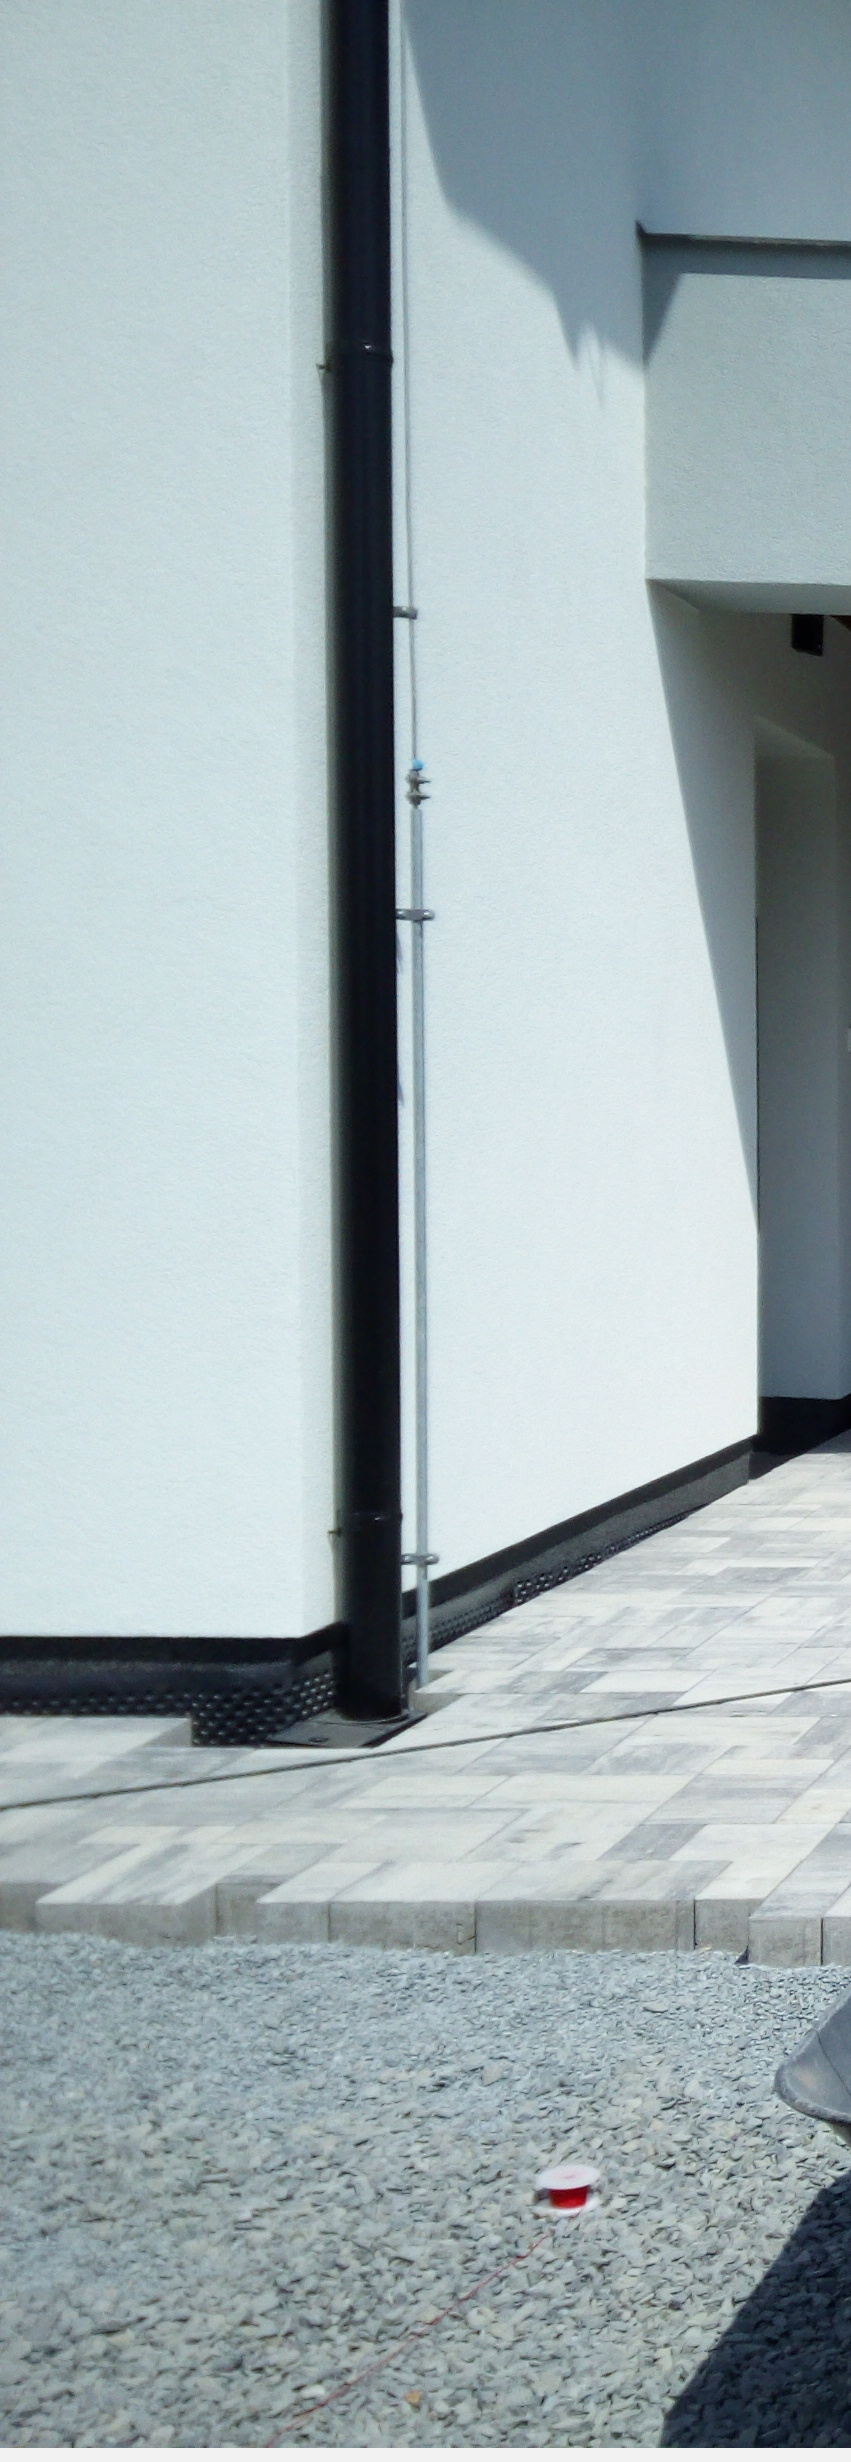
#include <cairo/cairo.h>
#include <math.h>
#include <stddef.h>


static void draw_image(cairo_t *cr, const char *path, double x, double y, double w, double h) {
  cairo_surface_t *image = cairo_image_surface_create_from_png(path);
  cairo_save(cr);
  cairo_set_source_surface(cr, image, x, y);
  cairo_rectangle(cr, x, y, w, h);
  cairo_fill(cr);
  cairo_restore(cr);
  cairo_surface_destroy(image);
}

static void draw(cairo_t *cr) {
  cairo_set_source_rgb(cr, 242 / 255.0, 242 / 255.0, 242 / 255.0);
  cairo_paint(cr);
  draw_image(cr, "images/1.png", 0, 0, 851, 2448);
}

int main(void) {
  cairo_surface_t *surface = cairo_image_surface_create(CAIRO_FORMAT_RGB24, 851, 2462);
  cairo_t *cr = cairo_create(surface);
  cairo_font_options_t *options = cairo_font_options_create();
  cairo_font_options_set_hint_metrics(options, CAIRO_HINT_METRICS_OFF);
  cairo_font_options_set_hint_style(options, CAIRO_HINT_STYLE_NONE);
  cairo_set_font_options(cr, options);
  cairo_set_miter_limit(cr, 4);
  draw(cr);
  cairo_surface_write_to_png(surface, "out.png");
  cairo_font_options_destroy(options);
  cairo_destroy(cr);
  cairo_surface_destroy(surface);
  return 0;
}
